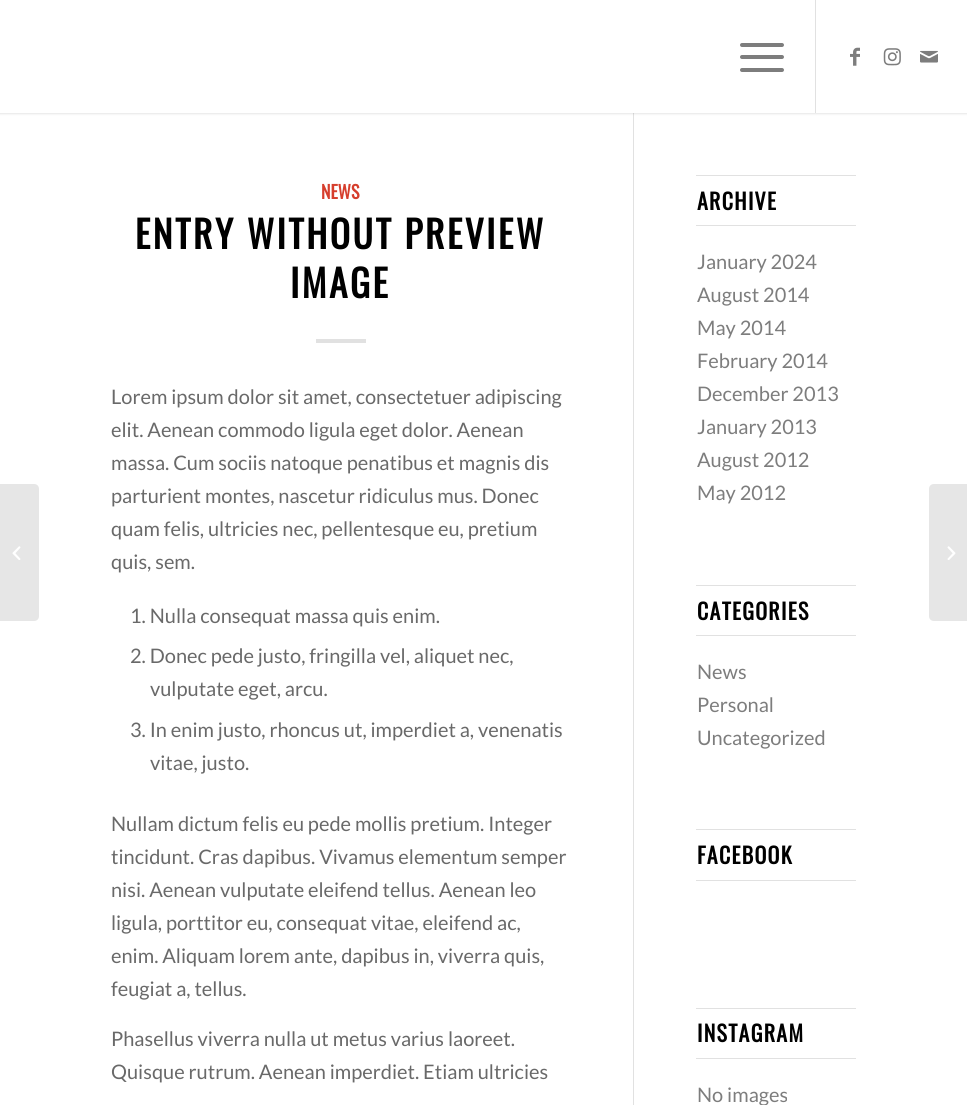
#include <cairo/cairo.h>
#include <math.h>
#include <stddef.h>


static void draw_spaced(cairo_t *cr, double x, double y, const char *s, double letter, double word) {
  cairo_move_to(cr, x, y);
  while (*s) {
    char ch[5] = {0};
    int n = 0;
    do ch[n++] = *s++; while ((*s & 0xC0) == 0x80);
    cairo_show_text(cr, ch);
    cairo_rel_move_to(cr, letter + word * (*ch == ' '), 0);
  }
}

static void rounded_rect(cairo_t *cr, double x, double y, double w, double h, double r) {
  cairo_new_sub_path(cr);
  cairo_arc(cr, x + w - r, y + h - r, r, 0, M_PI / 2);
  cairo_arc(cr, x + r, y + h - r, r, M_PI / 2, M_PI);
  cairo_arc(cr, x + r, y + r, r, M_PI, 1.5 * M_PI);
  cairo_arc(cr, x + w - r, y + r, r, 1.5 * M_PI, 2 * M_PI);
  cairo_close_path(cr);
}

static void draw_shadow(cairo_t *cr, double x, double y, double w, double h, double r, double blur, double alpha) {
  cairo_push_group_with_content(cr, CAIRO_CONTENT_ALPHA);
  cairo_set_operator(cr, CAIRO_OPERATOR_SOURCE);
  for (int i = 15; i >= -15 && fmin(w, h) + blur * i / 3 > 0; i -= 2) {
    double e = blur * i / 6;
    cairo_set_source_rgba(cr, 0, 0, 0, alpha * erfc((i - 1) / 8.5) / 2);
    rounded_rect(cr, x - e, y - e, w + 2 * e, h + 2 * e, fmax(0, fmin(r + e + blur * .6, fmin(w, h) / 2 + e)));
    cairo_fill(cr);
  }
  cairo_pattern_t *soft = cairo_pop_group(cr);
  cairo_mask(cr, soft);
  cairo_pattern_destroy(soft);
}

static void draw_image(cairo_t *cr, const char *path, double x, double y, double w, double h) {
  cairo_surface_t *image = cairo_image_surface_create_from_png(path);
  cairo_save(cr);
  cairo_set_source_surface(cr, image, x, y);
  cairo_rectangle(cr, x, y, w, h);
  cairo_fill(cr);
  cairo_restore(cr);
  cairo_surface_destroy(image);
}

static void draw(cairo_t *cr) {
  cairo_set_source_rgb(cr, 1, 1, 1);
  cairo_paint(cr);
  cairo_set_source_rgb(cr, 225 / 255.0, 225 / 255.0, 225 / 255.0);
  cairo_rectangle(cr, 633, 113, 1, 992);
  cairo_fill(cr);
  cairo_set_source_rgb(cr, 0, 0, 0);
  draw_shadow(cr, -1, -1, 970, 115, 0, 1, 0.1);
  cairo_set_source_rgb(cr, 1, 1, 1);
  cairo_rectangle(cr, 0, 0, 967, 113);
  cairo_fill(cr);
  cairo_set_source_rgb(cr, 225 / 255.0, 225 / 255.0, 225 / 255.0);
  cairo_rectangle(cr, 815, 0, 1, 113);
  cairo_fill(cr);
  cairo_set_source_rgb(cr, 125 / 255.0, 125 / 255.0, 125 / 255.0);
  rounded_rect(cr, 740, 55, 44, 4, 2);
  cairo_fill(cr);
  rounded_rect(cr, 740, 43, 44, 4, 2);
  cairo_fill(cr);
  rounded_rect(cr, 740, 68, 44, 4, 2);
  cairo_fill(cr);
  draw_image(cr, "images/1.png", 850, 47, 10, 19);
  draw_image(cr, "images/2.png", 883, 48, 18, 18);
  draw_image(cr, "images/3.png", 920, 50, 18, 13);
  cairo_set_source_rgb(cr, 230 / 255.0, 230 / 255.0, 230 / 255.0);
  cairo_new_path(cr);
  cairo_move_to(cr, 0, 484);
  cairo_line_to(cr, 34, 484);
  cairo_curve_to(cr, 37, 484, 39, 486, 39, 489);
  cairo_line_to(cr, 39, 616);
  cairo_curve_to(cr, 39, 619, 37, 621, 34, 621);
  cairo_line_to(cr, 0, 621);
  cairo_close_path(cr);
  cairo_fill(cr);
  draw_image(cr, "images/4.png", 12, 546, 9, 14);
  cairo_set_source_rgb(cr, 225 / 255.0, 225 / 255.0, 225 / 255.0);
  cairo_rectangle(cr, 316, 339, 50, 4);
  cairo_fill(cr);
  cairo_rectangle(cr, 696, 175, 160, 1);
  cairo_fill(cr);
  cairo_rectangle(cr, 696, 225, 160, 1);
  cairo_fill(cr);
  cairo_rectangle(cr, 696, 585, 160, 1);
  cairo_fill(cr);
  cairo_rectangle(cr, 696, 635, 160, 1);
  cairo_fill(cr);
  cairo_rectangle(cr, 696, 829, 160, 1);
  cairo_fill(cr);
  cairo_rectangle(cr, 696, 880, 160, 1);
  cairo_fill(cr);
  cairo_rectangle(cr, 696, 1008, 160, 1);
  cairo_fill(cr);
  cairo_rectangle(cr, 696, 1058, 160, 1);
  cairo_fill(cr);
  cairo_set_source_rgb(cr, 230 / 255.0, 230 / 255.0, 230 / 255.0);
  cairo_new_path(cr);
  cairo_move_to(cr, 934, 484);
  cairo_line_to(cr, 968, 484);
  cairo_line_to(cr, 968, 621);
  cairo_line_to(cr, 934, 621);
  cairo_curve_to(cr, 931, 621, 929, 619, 929, 616);
  cairo_line_to(cr, 929, 489);
  cairo_curve_to(cr, 929, 486, 931, 484, 934, 484);
  cairo_close_path(cr);
  cairo_fill(cr);
  draw_image(cr, "images/5.png", 947, 546, 9, 14);
  cairo_select_font_face(cr, "Oswald", CAIRO_FONT_SLANT_NORMAL, CAIRO_FONT_WEIGHT_BOLD);
  cairo_set_font_size(cr, 18);
  cairo_set_source_rgb(cr, 214 / 255.0, 62 / 255.0, 45 / 255.0);
  cairo_move_to(cr, 321, 199);
  cairo_show_text(cr, "NEWS");
  cairo_set_font_size(cr, 37.5);
  cairo_set_source_rgb(cr, 0, 0, 0);
  draw_spaced(cr, 135, 249, "ENTRY WITHOUT PREVIEW", 2.5, 0);
  draw_spaced(cr, 290, 298, "IMAGE", 2.5, 0);
  cairo_select_font_face(cr, "Lato", CAIRO_FONT_SLANT_NORMAL, CAIRO_FONT_WEIGHT_NORMAL);
  cairo_set_font_size(cr, 20);
  cairo_set_source_rgb(cr, 105 / 255.0, 105 / 255.0, 105 / 255.0);
  cairo_move_to(cr, 111, 404);
  cairo_show_text(cr, "Lorem ipsum dolor sit amet, consectetuer adipiscing");
  cairo_move_to(cr, 111, 437);
  cairo_show_text(cr, "elit. Aenean commodo ligula eget dolor. Aenean");
  cairo_move_to(cr, 111, 470);
  cairo_show_text(cr, "massa. Cum sociis natoque penatibus et magnis dis");
  cairo_move_to(cr, 111, 503);
  cairo_show_text(cr, "parturient montes, nascetur ridiculus mus. Donec");
  cairo_move_to(cr, 111, 536);
  cairo_show_text(cr, "quam felis, ultricies nec, pellentesque eu, pretium");
  cairo_move_to(cr, 111, 569);
  cairo_show_text(cr, "quis, sem.");
  cairo_move_to(cr, 130, 623);
  cairo_show_text(cr, "1. Nulla consequat massa quis enim.");
  cairo_move_to(cr, 130, 663);
  cairo_show_text(cr, "2. Donec pede justo, fringilla vel, aliquet nec,");
  cairo_move_to(cr, 150, 696);
  cairo_show_text(cr, "vulputate eget, arcu.");
  cairo_move_to(cr, 130, 737);
  cairo_show_text(cr, "3. In enim justo, rhoncus ut, imperdiet a, venenatis");
  cairo_move_to(cr, 150, 770);
  cairo_show_text(cr, "vitae, justo.");
  cairo_move_to(cr, 111, 831);
  cairo_show_text(cr, "Nullam dictum felis eu pede mollis pretium. Integer");
  cairo_move_to(cr, 111, 864);
  cairo_show_text(cr, "tincidunt. Cras dapibus. Vivamus elementum semper");
  cairo_move_to(cr, 111, 897);
  cairo_show_text(cr, "nisi. Aenean vulputate eleifend tellus. Aenean leo");
  cairo_move_to(cr, 111, 930);
  cairo_show_text(cr, "ligula, porttitor eu, consequat vitae, eleifend ac,");
  cairo_move_to(cr, 111, 963);
  cairo_show_text(cr, "enim. Aliquam lorem ante, dapibus in, viverra quis,");
  cairo_move_to(cr, 111, 996);
  cairo_show_text(cr, "feugiat a, tellus.");
  cairo_move_to(cr, 111, 1046);
  cairo_show_text(cr, "Phasellus viverra nulla ut metus varius laoreet.");
  cairo_move_to(cr, 111, 1079);
  cairo_show_text(cr, "Quisque rutrum. Aenean imperdiet. Etiam ultricies");
  cairo_select_font_face(cr, "Oswald", CAIRO_FONT_SLANT_NORMAL, CAIRO_FONT_WEIGHT_BOLD);
  cairo_set_font_size(cr, 22);
  cairo_set_source_rgb(cr, 0, 0, 0);
  draw_spaced(cr, 697, 210, "ARCHIVE", 1.25, 0);
  cairo_select_font_face(cr, "Lato", CAIRO_FONT_SLANT_NORMAL, CAIRO_FONT_WEIGHT_NORMAL);
  cairo_set_font_size(cr, 20);
  cairo_set_source_rgb(cr, 125 / 255.0, 125 / 255.0, 125 / 255.0);
  cairo_move_to(cr, 697, 269);
  cairo_show_text(cr, "January 2024");
  cairo_move_to(cr, 697, 302);
  cairo_show_text(cr, "August 2014");
  cairo_move_to(cr, 697, 335);
  cairo_show_text(cr, "May 2014");
  cairo_move_to(cr, 697, 368);
  cairo_show_text(cr, "February 2014");
  cairo_move_to(cr, 697, 401);
  cairo_show_text(cr, "December 2013");
  cairo_move_to(cr, 697, 434);
  cairo_show_text(cr, "January 2013");
  cairo_move_to(cr, 697, 467);
  cairo_show_text(cr, "August 2012");
  cairo_move_to(cr, 697, 500);
  cairo_show_text(cr, "May 2012");
  cairo_select_font_face(cr, "Oswald", CAIRO_FONT_SLANT_NORMAL, CAIRO_FONT_WEIGHT_BOLD);
  cairo_set_font_size(cr, 22);
  cairo_set_source_rgb(cr, 0, 0, 0);
  draw_spaced(cr, 697, 620, "CATEGORIES", 1.25, 0);
  cairo_select_font_face(cr, "Lato", CAIRO_FONT_SLANT_NORMAL, CAIRO_FONT_WEIGHT_NORMAL);
  cairo_set_font_size(cr, 20);
  cairo_set_source_rgb(cr, 125 / 255.0, 125 / 255.0, 125 / 255.0);
  cairo_move_to(cr, 697, 679);
  cairo_show_text(cr, "News");
  cairo_move_to(cr, 697, 712);
  cairo_show_text(cr, "Personal");
  cairo_move_to(cr, 697, 745);
  cairo_show_text(cr, "Uncategorized");
  cairo_select_font_face(cr, "Oswald", CAIRO_FONT_SLANT_NORMAL, CAIRO_FONT_WEIGHT_BOLD);
  cairo_set_font_size(cr, 22);
  cairo_set_source_rgb(cr, 0, 0, 0);
  draw_spaced(cr, 697, 864, "FACEBOOK", 1.25, 0);
  draw_spaced(cr, 697, 1042, "INSTAGRAM", 1.25, 0);
  cairo_select_font_face(cr, "Lato", CAIRO_FONT_SLANT_NORMAL, CAIRO_FONT_WEIGHT_NORMAL);
  cairo_set_font_size(cr, 20);
  cairo_set_source_rgb(cr, 125 / 255.0, 125 / 255.0, 125 / 255.0);
  cairo_move_to(cr, 697, 1102);
  cairo_show_text(cr, "No images");
}

int main(void) {
  cairo_surface_t *surface = cairo_image_surface_create(CAIRO_FORMAT_RGB24, 967, 1105);
  cairo_t *cr = cairo_create(surface);
  cairo_font_options_t *options = cairo_font_options_create();
  cairo_font_options_set_hint_metrics(options, CAIRO_HINT_METRICS_OFF);
  cairo_font_options_set_hint_style(options, CAIRO_HINT_STYLE_NONE);
  cairo_set_font_options(cr, options);
  cairo_set_miter_limit(cr, 4);
  draw(cr);
  cairo_surface_write_to_png(surface, "out.png");
  cairo_font_options_destroy(options);
  cairo_destroy(cr);
  cairo_surface_destroy(surface);
  return 0;
}
